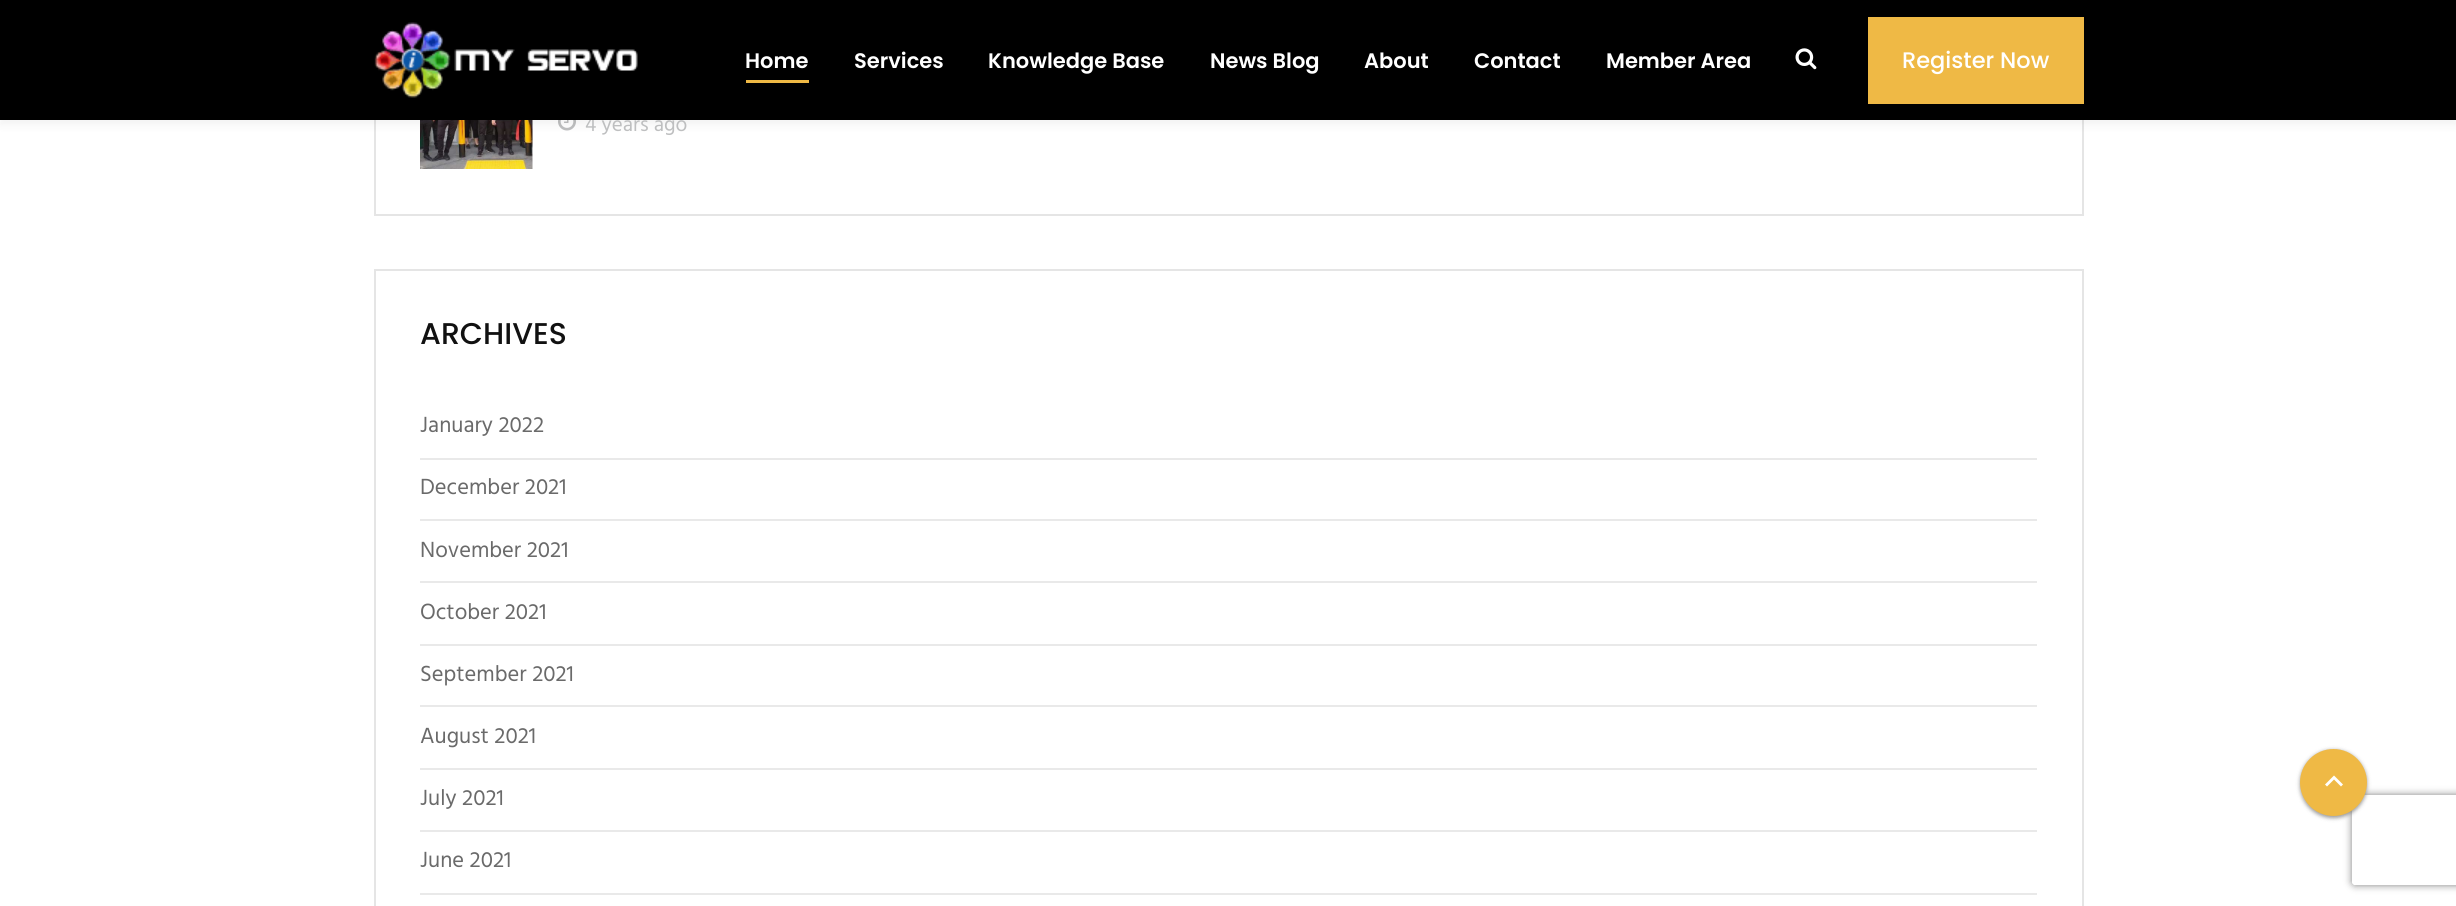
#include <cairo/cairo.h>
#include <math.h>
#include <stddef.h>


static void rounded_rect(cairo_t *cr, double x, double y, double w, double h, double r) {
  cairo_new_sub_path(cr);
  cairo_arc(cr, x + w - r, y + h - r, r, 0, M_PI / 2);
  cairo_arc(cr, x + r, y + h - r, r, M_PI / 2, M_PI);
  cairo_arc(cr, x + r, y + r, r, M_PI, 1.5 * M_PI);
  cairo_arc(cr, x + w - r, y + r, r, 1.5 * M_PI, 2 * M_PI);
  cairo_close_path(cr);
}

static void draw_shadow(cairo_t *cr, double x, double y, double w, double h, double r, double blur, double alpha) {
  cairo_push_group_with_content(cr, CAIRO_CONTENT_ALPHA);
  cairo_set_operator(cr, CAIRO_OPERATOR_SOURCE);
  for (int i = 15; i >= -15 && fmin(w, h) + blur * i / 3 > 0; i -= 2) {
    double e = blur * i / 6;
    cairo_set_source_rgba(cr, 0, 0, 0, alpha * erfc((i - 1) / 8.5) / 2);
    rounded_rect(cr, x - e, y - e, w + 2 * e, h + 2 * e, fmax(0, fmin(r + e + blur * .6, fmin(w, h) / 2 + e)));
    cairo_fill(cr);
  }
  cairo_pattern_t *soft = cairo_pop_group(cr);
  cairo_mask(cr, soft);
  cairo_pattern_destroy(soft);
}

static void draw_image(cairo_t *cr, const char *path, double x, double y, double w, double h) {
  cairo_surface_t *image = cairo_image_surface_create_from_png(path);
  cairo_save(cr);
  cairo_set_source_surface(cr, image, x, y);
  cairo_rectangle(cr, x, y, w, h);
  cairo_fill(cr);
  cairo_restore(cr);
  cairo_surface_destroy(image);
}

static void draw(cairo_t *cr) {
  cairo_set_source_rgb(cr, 1, 1, 1);
  cairo_paint(cr);
  cairo_rectangle(cr, 375, -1, 1708, 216);
  cairo_set_source_rgb(cr, 229 / 255.0, 229 / 255.0, 229 / 255.0);
  cairo_stroke(cr);
  draw_image(cr, "images/3.png", 420, 120, 113, 49);
  draw_image(cr, "images/4.png", 558, 120, 18, 11);
  cairo_set_source_rgb(cr, 0, 0, 0);
  draw_shadow(cr, 0, 5, 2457, 120, 0, 4.5, 0.05);
  cairo_rectangle(cr, 375, 270, 1708, 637);
  cairo_set_source_rgb(cr, 229 / 255.0, 229 / 255.0, 229 / 255.0);
  cairo_stroke(cr);
  cairo_set_source_rgb(cr, 233 / 255.0, 233 / 255.0, 233 / 255.0);
  cairo_rectangle(cr, 420, 458, 1617, 2);
  cairo_fill(cr);
  cairo_rectangle(cr, 420, 519, 1617, 2);
  cairo_fill(cr);
  cairo_rectangle(cr, 420, 581, 1617, 2);
  cairo_fill(cr);
  cairo_rectangle(cr, 420, 644, 1617, 2);
  cairo_fill(cr);
  cairo_rectangle(cr, 420, 705, 1617, 2);
  cairo_fill(cr);
  cairo_rectangle(cr, 420, 768, 1617, 2);
  cairo_fill(cr);
  cairo_rectangle(cr, 420, 830, 1617, 2);
  cairo_fill(cr);
  cairo_rectangle(cr, 420, 893, 1617, 2);
  cairo_fill(cr);
  cairo_set_source_rgb(cr, 0, 0, 0);
  draw_shadow(cr, 2300, 750, 67, 68, 33.5, 2, 0.4);
  cairo_save(cr);
  cairo_set_fill_rule(cr, CAIRO_FILL_RULE_EVEN_ODD);
  cairo_new_path(cr);
  cairo_move_to(cr, 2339, 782);
  cairo_line_to(cr, 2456, 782);
  cairo_line_to(cr, 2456, 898);
  cairo_line_to(cr, 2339, 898);
  cairo_close_path(cr);
  cairo_move_to(cr, 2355, 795);
  cairo_line_to(cr, 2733, 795);
  cairo_curve_to(cr, 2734.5, 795, 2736, 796.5, 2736, 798);
  cairo_line_to(cr, 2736, 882);
  cairo_curve_to(cr, 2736, 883.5, 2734.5, 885, 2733, 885);
  cairo_line_to(cr, 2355, 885);
  cairo_curve_to(cr, 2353.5, 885, 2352, 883.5, 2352, 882);
  cairo_line_to(cr, 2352, 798);
  cairo_curve_to(cr, 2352, 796.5, 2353.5, 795, 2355, 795);
  cairo_close_path(cr);
  cairo_clip(cr);
  cairo_set_source_rgb(cr, 128 / 255.0, 128 / 255.0, 128 / 255.0);
  draw_shadow(cr, 2352, 795, 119, 90, 3, 4, 1);
  cairo_restore(cr);
  cairo_set_source_rgb(cr, 239 / 255.0, 185 / 255.0, 69 / 255.0);
  cairo_arc(cr, 2333.5, 782.5, 33.5, 0, 2 * M_PI);
  cairo_fill(cr);
  cairo_set_source_rgb(cr, 1, 1, 1);
  cairo_new_path(cr);
  cairo_move_to(cr, 2334, 775.5);
  cairo_line_to(cr, 2343, 784.5);
  cairo_line_to(cr, 2341, 786.5);
  cairo_line_to(cr, 2334, 779.5);
  cairo_line_to(cr, 2327, 786.5);
  cairo_line_to(cr, 2325, 784.5);
  cairo_close_path(cr);
  cairo_fill(cr);
  cairo_select_font_face(cr, "Hind", CAIRO_FONT_SLANT_NORMAL, CAIRO_FONT_WEIGHT_NORMAL);
  cairo_set_font_size(cr, 21);
  cairo_set_source_rgb(cr, 190 / 255.0, 191 / 255.0, 192 / 255.0);
  cairo_move_to(cr, 585, 131);
  cairo_show_text(cr, "4 years ago");
  cairo_set_source_rgb(cr, 0, 0, 0);
  cairo_rectangle(cr, 0, 0, 2456, 120);
  cairo_fill(cr);
  cairo_select_font_face(cr, "Poppins SemiBold", CAIRO_FONT_SLANT_NORMAL, CAIRO_FONT_WEIGHT_NORMAL);
  cairo_set_source_rgb(cr, 1, 1, 1);
  cairo_move_to(cr, 1606, 68);
  cairo_show_text(cr, "Member Area");
  cairo_move_to(cr, 1474, 68);
  cairo_show_text(cr, "Contact");
  cairo_move_to(cr, 1364, 68);
  cairo_show_text(cr, "About");
  cairo_move_to(cr, 1210, 68);
  cairo_show_text(cr, "News Blog");
  cairo_move_to(cr, 988, 68);
  cairo_show_text(cr, "Knowledge Base");
  cairo_move_to(cr, 854, 68);
  cairo_show_text(cr, "Services");
  cairo_set_source_rgb(cr, 239 / 255.0, 185 / 255.0, 69 / 255.0);
  cairo_rectangle(cr, 746, 80, 63, 3);
  cairo_fill(cr);
  cairo_set_source_rgb(cr, 1, 1, 1);
  cairo_move_to(cr, 745, 68);
  cairo_show_text(cr, "Home");
  draw_image(cr, "images/1.png", 374, 22, 264, 76);
  cairo_set_source_rgb(cr, 239 / 255.0, 185 / 255.0, 69 / 255.0);
  cairo_rectangle(cr, 1868, 17, 216, 87);
  cairo_fill(cr);
  cairo_select_font_face(cr, "Poppins Medium", CAIRO_FONT_SLANT_NORMAL, CAIRO_FONT_WEIGHT_NORMAL);
  cairo_set_font_size(cr, 22.5);
  cairo_set_source_rgb(cr, 1, 1, 1);
  cairo_move_to(cr, 1902, 68);
  cairo_show_text(cr, "Register Now");
  draw_image(cr, "images/2.png", 1795, 48, 22, 22);
  cairo_set_font_size(cr, 30);
  cairo_set_source_rgb(cr, 17 / 255.0, 17 / 255.0, 17 / 255.0);
  cairo_move_to(cr, 420, 344);
  cairo_show_text(cr, "ARCHIVES");
  cairo_select_font_face(cr, "Hind", CAIRO_FONT_SLANT_NORMAL, CAIRO_FONT_WEIGHT_NORMAL);
  cairo_set_font_size(cr, 22.5);
  cairo_set_source_rgb(cr, 106 / 255.0, 106 / 255.0, 106 / 255.0);
  cairo_move_to(cr, 420, 432);
  cairo_show_text(cr, "January 2022");
  cairo_move_to(cr, 420, 494);
  cairo_show_text(cr, "December 2021");
  cairo_move_to(cr, 420, 557);
  cairo_show_text(cr, "November 2021");
  cairo_move_to(cr, 420, 619);
  cairo_show_text(cr, "October 2021");
  cairo_move_to(cr, 420, 681);
  cairo_show_text(cr, "September 2021");
  cairo_move_to(cr, 420, 743);
  cairo_show_text(cr, "August 2021");
  cairo_move_to(cr, 420, 805);
  cairo_show_text(cr, "July 2021");
  cairo_move_to(cr, 420, 867);
  cairo_show_text(cr, "June 2021");
}

int main(void) {
  cairo_surface_t *surface = cairo_image_surface_create(CAIRO_FORMAT_RGB24, 2456, 906);
  cairo_t *cr = cairo_create(surface);
  cairo_font_options_t *options = cairo_font_options_create();
  cairo_font_options_set_hint_metrics(options, CAIRO_HINT_METRICS_OFF);
  cairo_font_options_set_hint_style(options, CAIRO_HINT_STYLE_NONE);
  cairo_set_font_options(cr, options);
  cairo_set_miter_limit(cr, 4);
  draw(cr);
  cairo_surface_write_to_png(surface, "out.png");
  cairo_font_options_destroy(options);
  cairo_destroy(cr);
  cairo_surface_destroy(surface);
  return 0;
}
